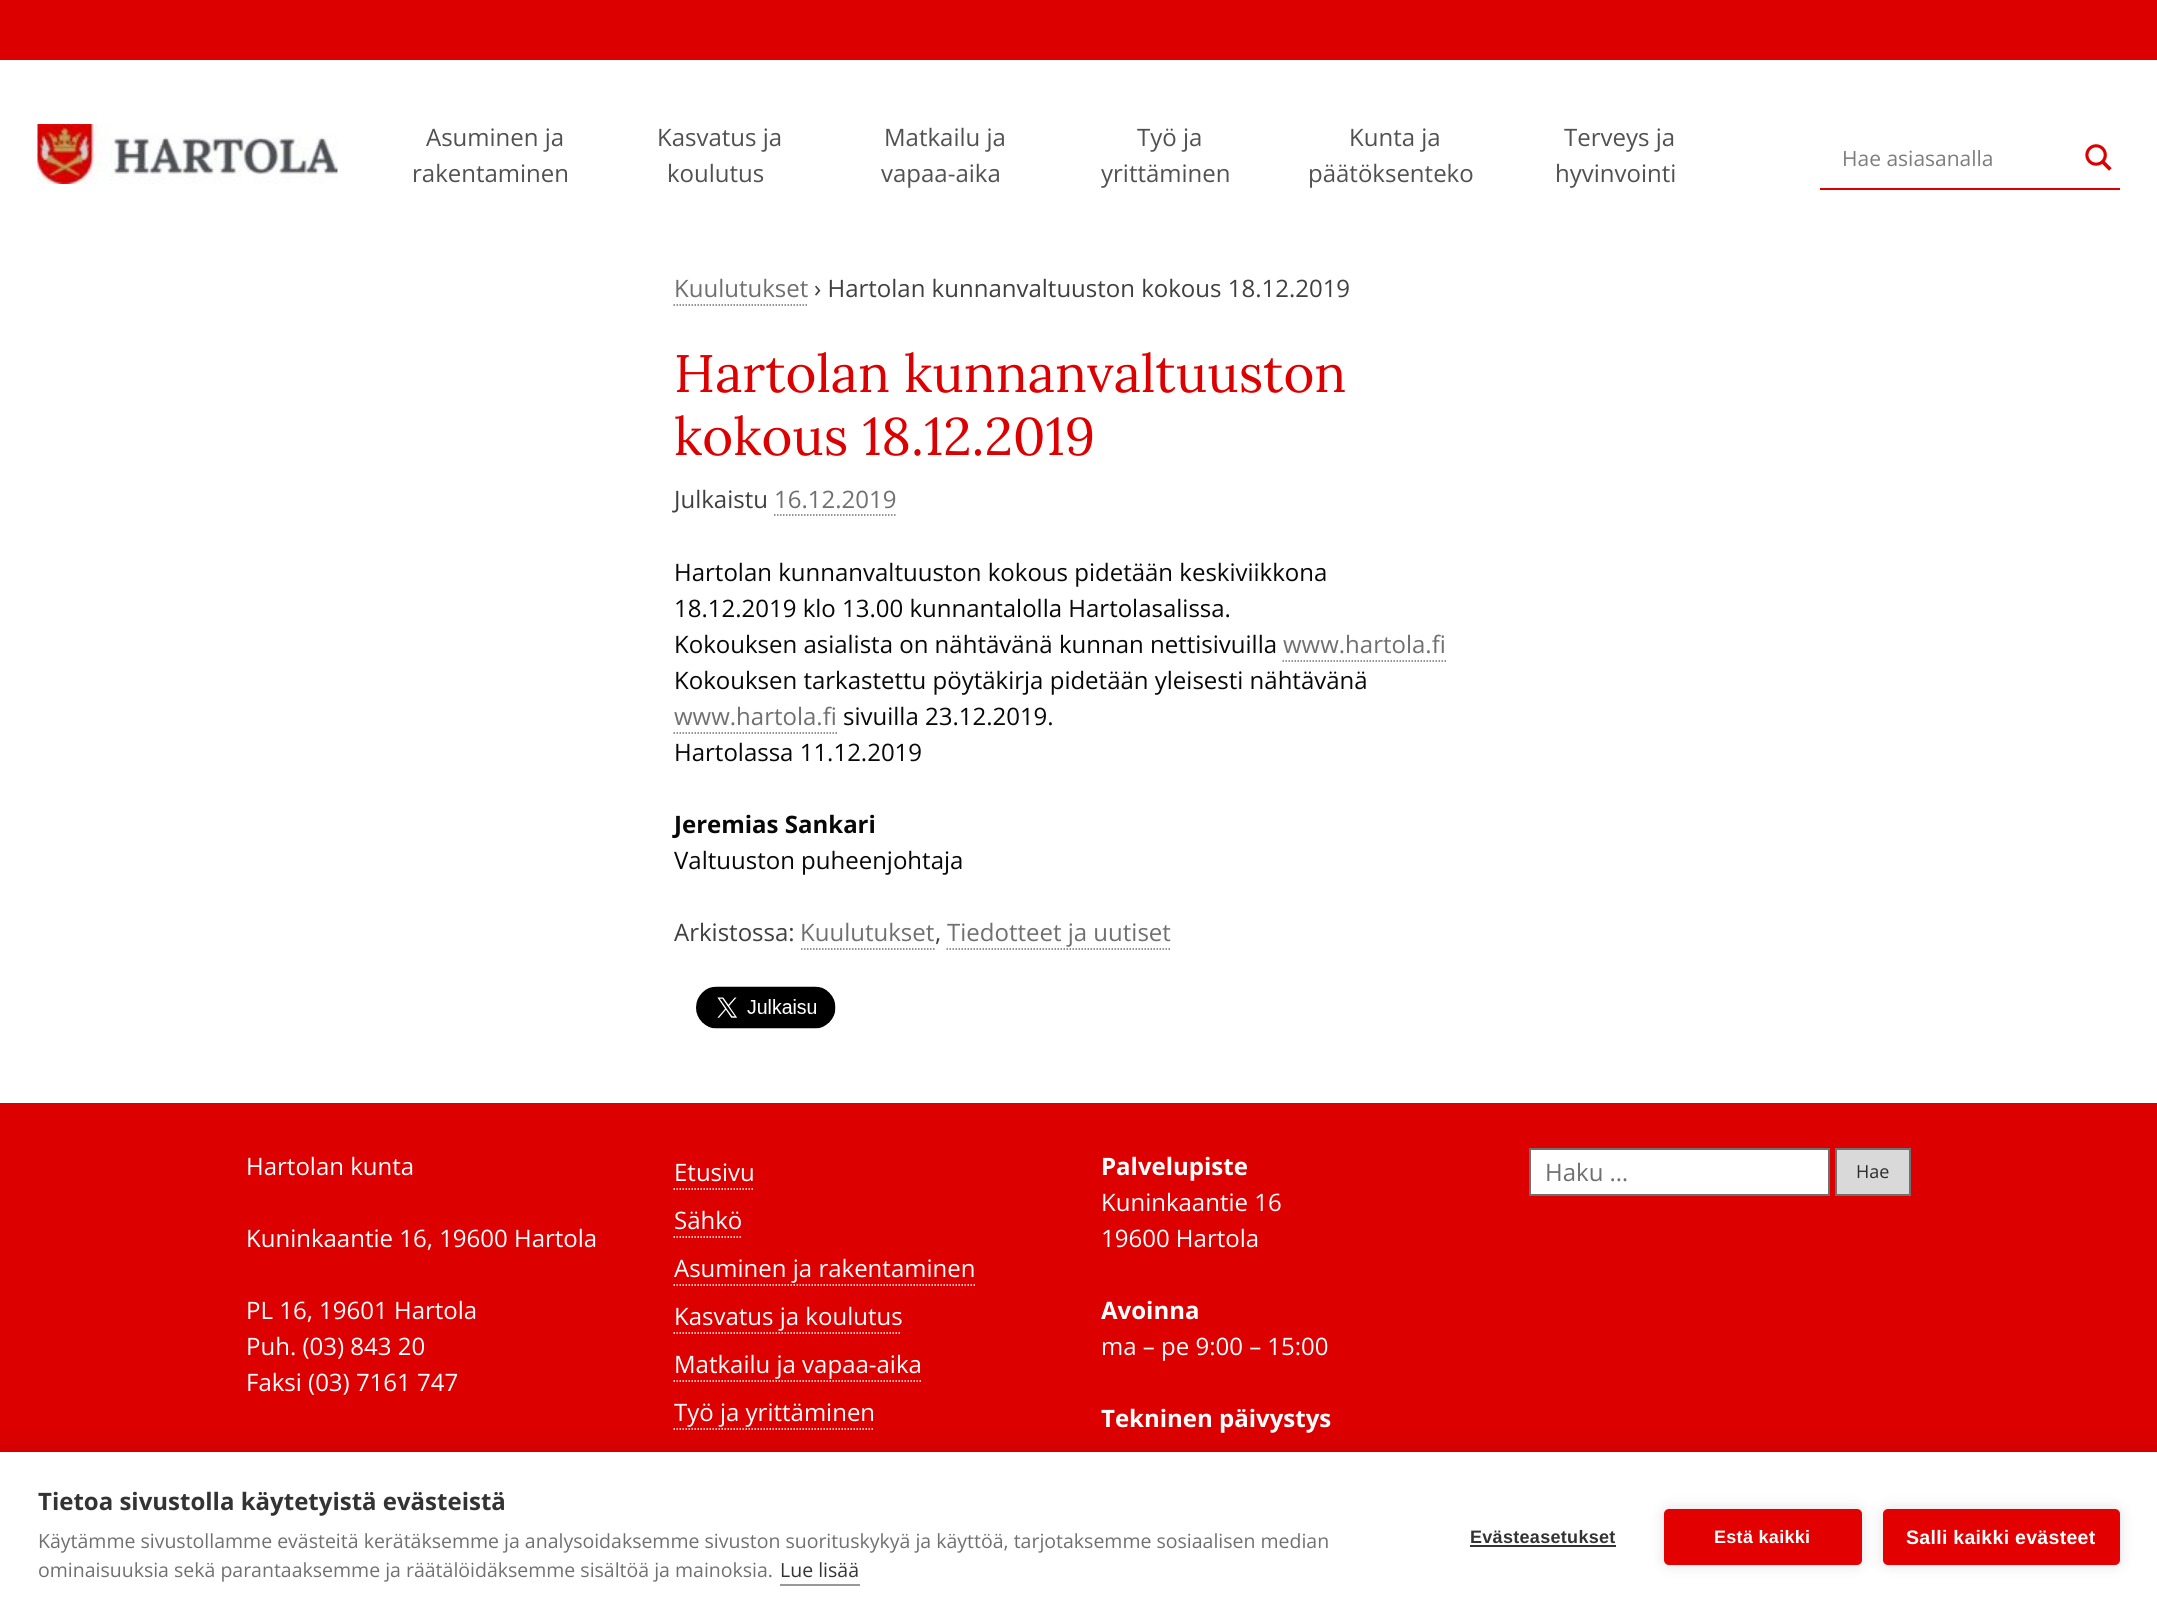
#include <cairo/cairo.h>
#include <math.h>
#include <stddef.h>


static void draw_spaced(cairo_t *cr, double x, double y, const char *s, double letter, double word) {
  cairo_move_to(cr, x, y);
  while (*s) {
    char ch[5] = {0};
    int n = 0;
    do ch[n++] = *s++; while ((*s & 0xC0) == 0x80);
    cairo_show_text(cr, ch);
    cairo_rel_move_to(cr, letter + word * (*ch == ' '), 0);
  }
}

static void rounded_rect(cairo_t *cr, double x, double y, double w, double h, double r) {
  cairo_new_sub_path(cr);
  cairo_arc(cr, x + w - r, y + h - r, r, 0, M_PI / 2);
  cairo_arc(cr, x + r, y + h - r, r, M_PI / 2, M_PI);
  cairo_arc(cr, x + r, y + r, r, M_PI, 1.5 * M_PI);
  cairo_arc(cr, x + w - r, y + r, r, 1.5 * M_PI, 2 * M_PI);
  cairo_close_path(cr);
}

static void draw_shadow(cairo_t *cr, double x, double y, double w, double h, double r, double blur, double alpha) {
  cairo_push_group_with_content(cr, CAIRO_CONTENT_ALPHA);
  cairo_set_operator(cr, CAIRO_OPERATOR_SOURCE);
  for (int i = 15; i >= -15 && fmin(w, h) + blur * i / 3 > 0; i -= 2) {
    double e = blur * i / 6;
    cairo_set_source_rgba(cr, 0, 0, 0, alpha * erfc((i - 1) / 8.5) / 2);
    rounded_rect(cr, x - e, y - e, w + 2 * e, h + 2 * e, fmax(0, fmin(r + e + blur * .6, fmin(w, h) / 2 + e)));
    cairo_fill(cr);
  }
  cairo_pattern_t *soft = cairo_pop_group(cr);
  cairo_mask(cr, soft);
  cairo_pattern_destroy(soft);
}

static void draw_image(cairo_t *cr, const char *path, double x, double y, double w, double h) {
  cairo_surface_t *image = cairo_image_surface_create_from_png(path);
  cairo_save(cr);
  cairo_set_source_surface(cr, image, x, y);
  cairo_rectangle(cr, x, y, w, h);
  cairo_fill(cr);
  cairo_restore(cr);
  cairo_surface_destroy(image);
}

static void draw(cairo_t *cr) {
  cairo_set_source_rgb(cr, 1, 1, 1);
  cairo_paint(cr);
  cairo_set_source_rgb(cr, 221 / 255.0, 0, 0);
  cairo_rectangle(cr, 0, 0, 2157, 60);
  cairo_fill(cr);
  draw_image(cr, "images/1.png", 37, 124, 301, 60);
  cairo_rectangle(cr, 1820, 188, 300, 2);
  cairo_fill(cr);
  draw_image(cr, "images/2.png", 2085, 144, 27, 27);
  cairo_new_path(cr);
  cairo_move_to(cr, 673.5, 305);
  cairo_line_to(cr, 808.5, 305);
  cairo_set_source_rgb(cr, 112 / 255.0, 112 / 255.0, 112 / 255.0);
  cairo_set_line_width(cr, 1.5);
  cairo_set_dash(cr, (double[]){1.5, 1.5}, 2, 0);
  cairo_stroke(cr);
  cairo_new_path(cr);
  cairo_move_to(cr, 774, 515);
  cairo_line_to(cr, 895.5, 515);
  cairo_stroke(cr);
  cairo_new_path(cr);
  cairo_move_to(cr, 1282.5, 661);
  cairo_line_to(cr, 1446, 661);
  cairo_stroke(cr);
  cairo_new_path(cr);
  cairo_move_to(cr, 673.5, 733);
  cairo_line_to(cr, 837, 733);
  cairo_stroke(cr);
  cairo_new_path(cr);
  cairo_move_to(cr, 801, 949);
  cairo_line_to(cr, 934.5, 949);
  cairo_stroke(cr);
  cairo_new_path(cr);
  cairo_move_to(cr, 946.5, 949);
  cairo_line_to(cr, 1171.5, 949);
  cairo_stroke(cr);
  draw_image(cr, "images/3.png", 696, 986, 140, 43);
  cairo_set_source_rgb(cr, 221 / 255.0, 0, 0);
  cairo_rectangle(cr, 0, 1103, 2157, 349);
  cairo_fill(cr);
  cairo_new_path(cr);
  cairo_move_to(cr, 673.5, 1189);
  cairo_line_to(cr, 754.5, 1189);
  cairo_set_source_rgb(cr, 1, 1, 1);
  cairo_stroke(cr);
  cairo_new_path(cr);
  cairo_move_to(cr, 673.5, 1237);
  cairo_line_to(cr, 742.5, 1237);
  cairo_stroke(cr);
  cairo_new_path(cr);
  cairo_move_to(cr, 673.5, 1285);
  cairo_line_to(cr, 975, 1285);
  cairo_stroke(cr);
  cairo_new_path(cr);
  cairo_move_to(cr, 673.5, 1333);
  cairo_line_to(cr, 901.5, 1333);
  cairo_stroke(cr);
  cairo_new_path(cr);
  cairo_move_to(cr, 673.5, 1381);
  cairo_line_to(cr, 921, 1381);
  cairo_stroke(cr);
  cairo_new_path(cr);
  cairo_move_to(cr, 673.5, 1429);
  cairo_line_to(cr, 874.5, 1429);
  cairo_stroke(cr);
  cairo_rectangle(cr, 1530, 1149, 299, 46);
  cairo_fill_preserve(cr);
  cairo_set_source_rgb(cr, 112 / 255.0, 112 / 255.0, 112 / 255.0);
  cairo_set_line_width(cr, 2);
  cairo_set_dash(cr, NULL, 0, 0);
  cairo_stroke(cr);
  cairo_set_source_rgb(cr, 217 / 255.0, 217 / 255.0, 217 / 255.0);
  cairo_rectangle(cr, 1836, 1149, 74, 46);
  cairo_fill_preserve(cr);
  cairo_set_source_rgb(cr, 112 / 255.0, 112 / 255.0, 112 / 255.0);
  cairo_stroke(cr);
  cairo_set_source_rgb(cr, 0, 0, 0);
  draw_shadow(cr, 0, 1452, 2157, 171, 0, 15, 0.1);
  cairo_set_source_rgb(cr, 1, 1, 1);
  cairo_rectangle(cr, 0, 1452, 2157, 170);
  cairo_fill(cr);
  cairo_set_source_rgb(cr, 153 / 255.0, 153 / 255.0, 153 / 255.0);
  cairo_rectangle(cr, 780, 1584, 80, 2);
  cairo_fill(cr);
  cairo_set_source_rgb(cr, 51 / 255.0, 51 / 255.0, 51 / 255.0);
  cairo_rectangle(cr, 1470, 1545, 146, 2);
  cairo_fill(cr);
  cairo_set_source_rgb(cr, 0, 0, 0);
  draw_shadow(cr, 1664, 1509, 198, 56, 5, 7.5, 0.12);
  cairo_set_source_rgb(cr, 226 / 255.0, 0, 0);
  rounded_rect(cr, 1664, 1509, 198, 56, 5);
  cairo_fill(cr);
  cairo_set_source_rgb(cr, 0, 0, 0);
  draw_shadow(cr, 1883, 1509, 237, 56, 5, 7.5, 0.12);
  cairo_set_source_rgb(cr, 226 / 255.0, 0, 0);
  rounded_rect(cr, 1883, 1509, 237, 56, 5);
  cairo_fill(cr);
  cairo_select_font_face(cr, "Open Sans", CAIRO_FONT_SLANT_NORMAL, CAIRO_FONT_WEIGHT_NORMAL);
  cairo_set_font_size(cr, 24);
  cairo_set_source_rgb(cr, 81 / 255.0, 81 / 255.0, 81 / 255.0);
  cairo_move_to(cr, 426, 146);
  cairo_show_text(cr, "Asuminen ja");
  cairo_move_to(cr, 412, 182);
  cairo_show_text(cr, "rakentaminen");
  cairo_move_to(cr, 657, 146);
  cairo_show_text(cr, "Kasvatus ja");
  cairo_move_to(cr, 667, 182);
  cairo_show_text(cr, "koulutus");
  cairo_move_to(cr, 884, 146);
  cairo_show_text(cr, "Matkailu ja");
  cairo_move_to(cr, 881, 182);
  cairo_show_text(cr, "vapaa-aika");
  cairo_move_to(cr, 1137, 146);
  cairo_show_text(cr, "Työ ja");
  cairo_move_to(cr, 1101, 182);
  cairo_show_text(cr, "yrittäminen");
  cairo_move_to(cr, 1349, 146);
  cairo_show_text(cr, "Kunta ja");
  cairo_move_to(cr, 1308, 182);
  cairo_show_text(cr, "päätöksenteko");
  cairo_move_to(cr, 1564, 146);
  cairo_show_text(cr, "Terveys ja");
  cairo_move_to(cr, 1555, 182);
  cairo_show_text(cr, "hyvinvointi");
  cairo_set_font_size(cr, 21);
  cairo_set_source_rgb(cr, 125 / 255.0, 125 / 255.0, 125 / 255.0);
  cairo_move_to(cr, 1842, 166);
  cairo_show_text(cr, "Hae asiasanalla");
  cairo_set_font_size(cr, 24);
  cairo_set_source_rgb(cr, 112 / 255.0, 112 / 255.0, 112 / 255.0);
  cairo_move_to(cr, 674, 297);
  cairo_show_text(cr, "Kuulutukset");
  cairo_set_source_rgb(cr, 64 / 255.0, 64 / 255.0, 64 / 255.0);
  cairo_move_to(cr, 814, 297);
  cairo_show_text(cr, "› Hartolan kunnanvaltuuston kokous 18.12.2019");
  cairo_select_font_face(cr, "Lora", CAIRO_FONT_SLANT_NORMAL, CAIRO_FONT_WEIGHT_NORMAL);
  cairo_set_font_size(cr, 52.75);
  cairo_set_source_rgb(cr, 221 / 255.0, 0, 0);
  cairo_move_to(cr, 674, 392);
  cairo_show_text(cr, "Hartolan kunnanvaltuuston");
  cairo_move_to(cr, 674, 455);
  cairo_show_text(cr, "kokous 18.12.2019");
  cairo_select_font_face(cr, "Open Sans", CAIRO_FONT_SLANT_NORMAL, CAIRO_FONT_WEIGHT_NORMAL);
  cairo_set_font_size(cr, 24);
  cairo_set_source_rgb(cr, 64 / 255.0, 64 / 255.0, 64 / 255.0);
  cairo_move_to(cr, 674, 508);
  cairo_show_text(cr, "Julkaistu");
  cairo_set_source_rgb(cr, 112 / 255.0, 112 / 255.0, 112 / 255.0);
  cairo_move_to(cr, 774, 508);
  cairo_show_text(cr, "16.12.2019");
  cairo_set_source_rgb(cr, 8 / 255.0, 8 / 255.0, 8 / 255.0);
  cairo_move_to(cr, 674, 581);
  cairo_show_text(cr, "Hartolan kunnanvaltuuston kokous pidetään keskiviikkona");
  cairo_move_to(cr, 674, 617);
  cairo_show_text(cr, "18.12.2019 klo 13.00 kunnantalolla Hartolasalissa.");
  cairo_move_to(cr, 674, 653);
  cairo_show_text(cr, "Kokouksen asialista on nähtävänä kunnan nettisivuilla");
  cairo_set_source_rgb(cr, 112 / 255.0, 112 / 255.0, 112 / 255.0);
  cairo_move_to(cr, 1283, 653);
  cairo_show_text(cr, "www.hartola.fi");
  cairo_set_source_rgb(cr, 8 / 255.0, 8 / 255.0, 8 / 255.0);
  cairo_move_to(cr, 674, 689);
  cairo_show_text(cr, "Kokouksen tarkastettu pöytäkirja pidetään yleisesti nähtävänä");
  cairo_set_source_rgb(cr, 112 / 255.0, 112 / 255.0, 112 / 255.0);
  cairo_move_to(cr, 674, 725);
  cairo_show_text(cr, "www.hartola.fi");
  cairo_set_source_rgb(cr, 8 / 255.0, 8 / 255.0, 8 / 255.0);
  cairo_move_to(cr, 843, 725);
  cairo_show_text(cr, "sivuilla 23.12.2019.");
  cairo_move_to(cr, 674, 761);
  cairo_show_text(cr, "Hartolassa 11.12.2019");
  cairo_select_font_face(cr, "Open Sans", CAIRO_FONT_SLANT_NORMAL, CAIRO_FONT_WEIGHT_BOLD);
  cairo_move_to(cr, 674, 833);
  cairo_show_text(cr, "Jeremias Sankari");
  cairo_select_font_face(cr, "Open Sans", CAIRO_FONT_SLANT_NORMAL, CAIRO_FONT_WEIGHT_NORMAL);
  cairo_move_to(cr, 674, 869);
  cairo_show_text(cr, "Valtuuston puheenjohtaja");
  cairo_set_source_rgb(cr, 64 / 255.0, 64 / 255.0, 64 / 255.0);
  cairo_move_to(cr, 674, 941);
  cairo_show_text(cr, "Arkistossa:");
  cairo_set_source_rgb(cr, 112 / 255.0, 112 / 255.0, 112 / 255.0);
  cairo_move_to(cr, 800, 941);
  cairo_show_text(cr, "Kuulutukset");
  cairo_set_source_rgb(cr, 64 / 255.0, 64 / 255.0, 64 / 255.0);
  cairo_move_to(cr, 935, 941);
  cairo_show_text(cr, ",");
  cairo_set_source_rgb(cr, 112 / 255.0, 112 / 255.0, 112 / 255.0);
  cairo_move_to(cr, 947, 941);
  cairo_show_text(cr, "Tiedotteet ja uutiset");
  cairo_set_source_rgb(cr, 1, 1, 1);
  cairo_move_to(cr, 246, 1175);
  cairo_show_text(cr, "Hartolan kunta");
  cairo_move_to(cr, 246, 1247);
  cairo_show_text(cr, "Kuninkaantie 16, 19600 Hartola");
  cairo_move_to(cr, 246, 1319);
  cairo_show_text(cr, "PL 16, 19601 Hartola");
  cairo_move_to(cr, 246, 1355);
  cairo_show_text(cr, "Puh. (03) 843 20");
  cairo_move_to(cr, 246, 1391);
  cairo_show_text(cr, "Faksi (03) 7161 747");
  cairo_move_to(cr, 674, 1181);
  cairo_show_text(cr, "Etusivu");
  cairo_move_to(cr, 674, 1229);
  cairo_show_text(cr, "Sähkö");
  cairo_move_to(cr, 674, 1277);
  cairo_show_text(cr, "Asuminen ja rakentaminen");
  cairo_move_to(cr, 674, 1325);
  cairo_show_text(cr, "Kasvatus ja koulutus");
  cairo_move_to(cr, 674, 1373);
  cairo_show_text(cr, "Matkailu ja vapaa-aika");
  cairo_move_to(cr, 674, 1421);
  cairo_show_text(cr, "Työ ja yrittäminen");
  cairo_select_font_face(cr, "Open Sans", CAIRO_FONT_SLANT_NORMAL, CAIRO_FONT_WEIGHT_BOLD);
  cairo_move_to(cr, 1101, 1175);
  cairo_show_text(cr, "Palvelupiste");
  cairo_select_font_face(cr, "Open Sans", CAIRO_FONT_SLANT_NORMAL, CAIRO_FONT_WEIGHT_NORMAL);
  cairo_move_to(cr, 1101, 1211);
  cairo_show_text(cr, "Kuninkaantie 16");
  cairo_move_to(cr, 1101, 1247);
  cairo_show_text(cr, "19600 Hartola");
  cairo_select_font_face(cr, "Open Sans", CAIRO_FONT_SLANT_NORMAL, CAIRO_FONT_WEIGHT_BOLD);
  cairo_move_to(cr, 1101, 1319);
  cairo_show_text(cr, "Avoinna");
  cairo_select_font_face(cr, "Open Sans", CAIRO_FONT_SLANT_NORMAL, CAIRO_FONT_WEIGHT_NORMAL);
  cairo_move_to(cr, 1101, 1355);
  cairo_show_text(cr, "ma – pe 9:00 – 15:00");
  cairo_select_font_face(cr, "Open Sans", CAIRO_FONT_SLANT_NORMAL, CAIRO_FONT_WEIGHT_BOLD);
  cairo_move_to(cr, 1101, 1427);
  cairo_show_text(cr, "Tekninen päivystys");
  cairo_select_font_face(cr, "Open Sans", CAIRO_FONT_SLANT_NORMAL, CAIRO_FONT_WEIGHT_NORMAL);
  cairo_set_source_rgb(cr, 112 / 255.0, 112 / 255.0, 112 / 255.0);
  cairo_move_to(cr, 1545, 1181);
  cairo_show_text(cr, "Haku …");
  cairo_set_font_size(cr, 18);
  cairo_set_source_rgb(cr, 43 / 255.0, 43 / 255.0, 43 / 255.0);
  cairo_move_to(cr, 1856, 1178);
  cairo_show_text(cr, "Hae");
  cairo_select_font_face(cr, "Open Sans", CAIRO_FONT_SLANT_NORMAL, CAIRO_FONT_WEIGHT_BOLD);
  cairo_set_font_size(cr, 24);
  cairo_set_source_rgb(cr, 51 / 255.0, 51 / 255.0, 51 / 255.0);
  cairo_move_to(cr, 38, 1510);
  cairo_show_text(cr, "Tietoa sivustolla käytetyistä evästeistä");
  cairo_select_font_face(cr, "Open Sans", CAIRO_FONT_SLANT_NORMAL, CAIRO_FONT_WEIGHT_NORMAL);
  cairo_set_font_size(cr, 19.5);
  cairo_set_source_rgb(cr, 112 / 255.0, 112 / 255.0, 112 / 255.0);
  cairo_move_to(cr, 38, 1548);
  cairo_show_text(cr, "Käytämme sivustollamme evästeitä kerätäksemme ja analysoidaksemme sivuston suorituskykyä ja käyttöä, tarjotaksemme sosiaalisen median");
  cairo_move_to(cr, 38, 1577);
  cairo_show_text(cr, "ominaisuuksia sekä parantaaksemme ja räätälöidäksemme sisältöä ja mainoksia.");
  cairo_set_source_rgb(cr, 51 / 255.0, 51 / 255.0, 51 / 255.0);
  cairo_move_to(cr, 780, 1577);
  cairo_show_text(cr, "Lue lisää");
  cairo_select_font_face(cr, "Liberation Sans", CAIRO_FONT_SLANT_NORMAL, CAIRO_FONT_WEIGHT_BOLD);
  cairo_set_font_size(cr, 18);
  draw_spaced(cr, 1470, 1543, "Evästeasetukset", 0.3, 0);
  cairo_set_source_rgb(cr, 1, 1, 1);
  draw_spaced(cr, 1714, 1543, "Estä kaikki", 0.3, 0);
  cairo_set_font_size(cr, 19.5);
  draw_spaced(cr, 1906, 1544, "Salli kaikki evästeet", 0.3, 0);
}

int main(void) {
  cairo_surface_t *surface = cairo_image_surface_create(CAIRO_FORMAT_RGB24, 2157, 1622);
  cairo_t *cr = cairo_create(surface);
  cairo_font_options_t *options = cairo_font_options_create();
  cairo_font_options_set_hint_metrics(options, CAIRO_HINT_METRICS_OFF);
  cairo_font_options_set_hint_style(options, CAIRO_HINT_STYLE_NONE);
  cairo_set_font_options(cr, options);
  cairo_set_miter_limit(cr, 4);
  draw(cr);
  cairo_surface_write_to_png(surface, "out.png");
  cairo_font_options_destroy(options);
  cairo_destroy(cr);
  cairo_surface_destroy(surface);
  return 0;
}
